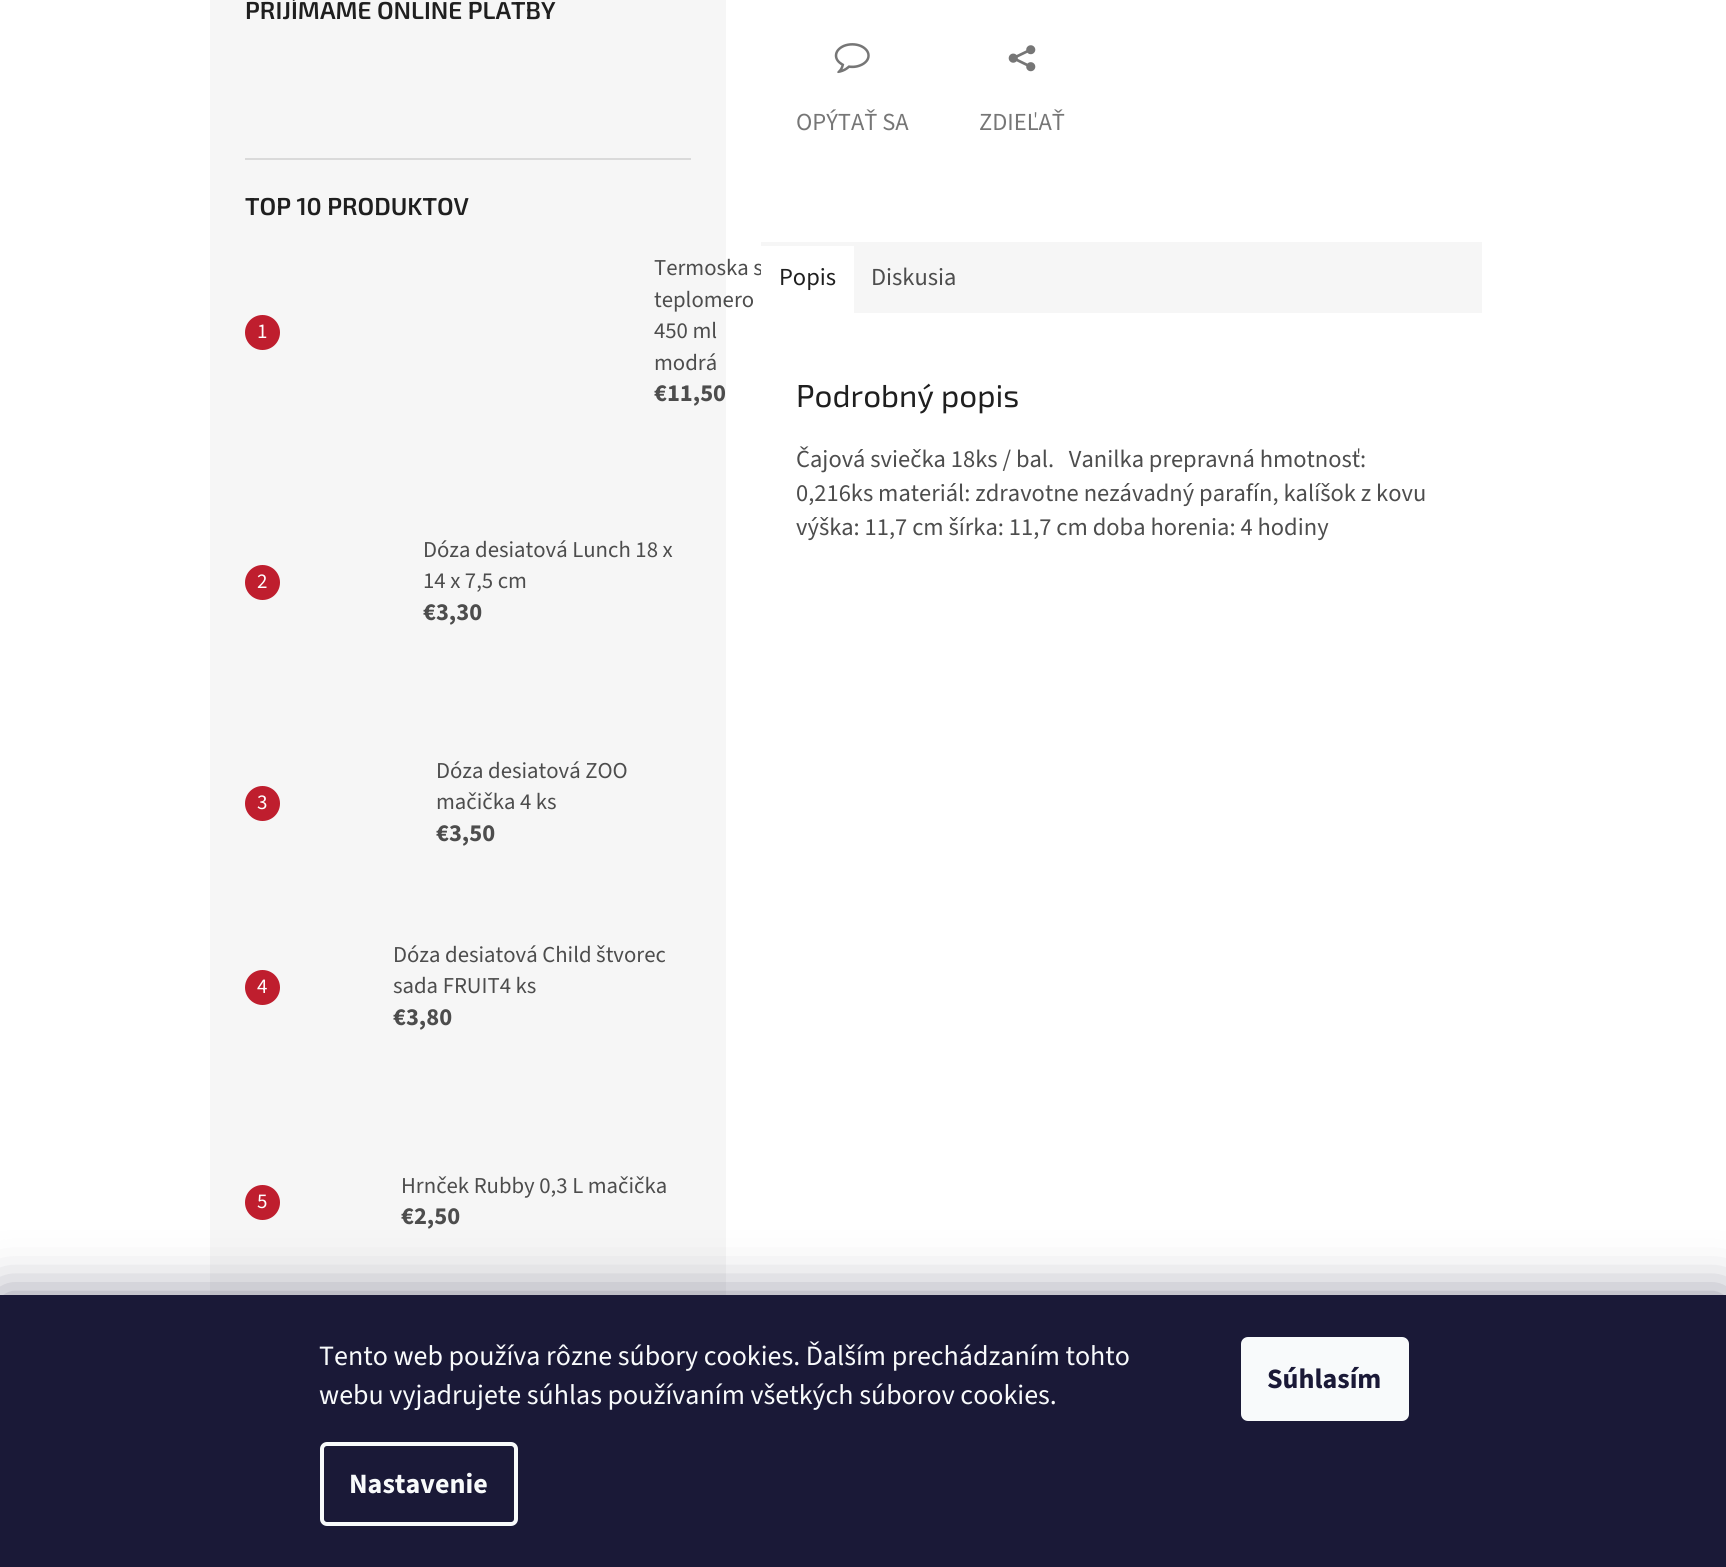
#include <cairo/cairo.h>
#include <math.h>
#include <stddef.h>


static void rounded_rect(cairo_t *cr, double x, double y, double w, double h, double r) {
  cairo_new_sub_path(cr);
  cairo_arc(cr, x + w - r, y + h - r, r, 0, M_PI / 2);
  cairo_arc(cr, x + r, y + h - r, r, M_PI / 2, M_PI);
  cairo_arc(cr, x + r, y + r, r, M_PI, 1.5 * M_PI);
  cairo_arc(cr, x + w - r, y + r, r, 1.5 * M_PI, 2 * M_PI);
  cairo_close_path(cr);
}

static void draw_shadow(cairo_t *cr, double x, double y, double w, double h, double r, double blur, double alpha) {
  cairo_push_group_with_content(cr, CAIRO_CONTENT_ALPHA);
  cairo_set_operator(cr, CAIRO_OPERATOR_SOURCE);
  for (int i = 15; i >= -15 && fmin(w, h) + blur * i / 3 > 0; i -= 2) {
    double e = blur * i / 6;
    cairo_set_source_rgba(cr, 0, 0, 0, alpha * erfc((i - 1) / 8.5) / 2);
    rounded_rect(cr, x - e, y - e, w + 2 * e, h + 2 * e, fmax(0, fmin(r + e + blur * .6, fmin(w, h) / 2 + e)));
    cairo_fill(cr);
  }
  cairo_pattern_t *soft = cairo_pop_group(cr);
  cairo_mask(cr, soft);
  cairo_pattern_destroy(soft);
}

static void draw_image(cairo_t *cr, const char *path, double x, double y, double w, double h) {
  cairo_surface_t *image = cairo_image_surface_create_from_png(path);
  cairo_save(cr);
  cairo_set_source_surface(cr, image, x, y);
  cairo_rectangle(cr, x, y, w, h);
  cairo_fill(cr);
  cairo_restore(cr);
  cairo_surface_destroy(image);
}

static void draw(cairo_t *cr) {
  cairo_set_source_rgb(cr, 1, 1, 1);
  cairo_paint(cr);
  cairo_set_source_rgb(cr, 246 / 255.0, 246 / 255.0, 246 / 255.0);
  cairo_rectangle(cr, 210, 0, 516, 1295);
  cairo_fill(cr);
  cairo_set_source_rgb(cr, 218 / 255.0, 218 / 255.0, 218 / 255.0);
  cairo_rectangle(cr, 245, 158, 446, 2);
  cairo_fill(cr);
  cairo_set_source_rgb(cr, 191 / 255.0, 30 / 255.0, 46 / 255.0);
  cairo_arc(cr, 262.5, 332.5, 17.5, 0, 2 * M_PI);
  cairo_fill(cr);
  cairo_arc(cr, 262.5, 582.5, 17.5, 0, 2 * M_PI);
  cairo_fill(cr);
  cairo_arc(cr, 262.5, 803.5, 17.5, 0, 2 * M_PI);
  cairo_fill(cr);
  cairo_arc(cr, 262.5, 987.5, 17.5, 0, 2 * M_PI);
  cairo_fill(cr);
  cairo_arc(cr, 262.5, 1202.5, 17.5, 0, 2 * M_PI);
  cairo_fill(cr);
  draw_image(cr, "images/1.png", 834, 43, 36, 31);
  draw_image(cr, "images/2.png", 1008, 45, 28, 27);
  cairo_set_source_rgb(cr, 246 / 255.0, 246 / 255.0, 246 / 255.0);
  cairo_rectangle(cr, 854, 242, 628, 71);
  cairo_fill(cr);
  cairo_rectangle(cr, 761, 242, 93, 4);
  cairo_fill(cr);
  cairo_set_source_rgb(cr, 27 / 255.0, 25 / 255.0, 57 / 255.0);
  draw_shadow(cr, 0, 1295, 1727, 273, 0, 26, 0.5);
  cairo_set_source_rgb(cr, 26 / 255.0, 25 / 255.0, 55 / 255.0);
  cairo_rectangle(cr, 0, 1295, 1726, 272);
  cairo_fill(cr);
  rounded_rect(cr, 322, 1444, 194, 80, 5);
  cairo_set_source_rgb(cr, 248 / 255.0, 250 / 255.0, 251 / 255.0);
  cairo_set_line_width(cr, 4);
  cairo_stroke(cr);
  rounded_rect(cr, 1241, 1337, 168, 84, 7);
  cairo_fill(cr);
  cairo_select_font_face(cr, "Exo 2 SemiBold", CAIRO_FONT_SLANT_NORMAL, CAIRO_FONT_WEIGHT_NORMAL);
  cairo_set_font_size(cr, 24.5);
  cairo_set_source_rgb(cr, 31 / 255.0, 31 / 255.0, 31 / 255.0);
  cairo_move_to(cr, 245, 19);
  cairo_show_text(cr, "PRIJÍMAME ONLINE PLATBY");
  cairo_move_to(cr, 245, 215);
  cairo_show_text(cr, "TOP 10 PRODUKTOV");
  cairo_select_font_face(cr, "Source Sans 3", CAIRO_FONT_SLANT_NORMAL, CAIRO_FONT_WEIGHT_NORMAL);
  cairo_set_font_size(cr, 21);
  cairo_set_source_rgb(cr, 1, 1, 1);
  cairo_move_to(cr, 257, 338);
  cairo_show_text(cr, "1");
  cairo_set_font_size(cr, 22.75);
  cairo_set_source_rgb(cr, 77 / 255.0, 77 / 255.0, 77 / 255.0);
  cairo_move_to(cr, 654, 275);
  cairo_show_text(cr, "Termoska s");
  cairo_move_to(cr, 654, 307);
  cairo_show_text(cr, "teplomero");
  cairo_move_to(cr, 654, 338);
  cairo_show_text(cr, "450 ml");
  cairo_move_to(cr, 654, 370);
  cairo_show_text(cr, "modrá");
  cairo_select_font_face(cr, "Source Sans 3", CAIRO_FONT_SLANT_NORMAL, CAIRO_FONT_WEIGHT_BOLD);
  cairo_set_font_size(cr, 24.5);
  cairo_move_to(cr, 654, 401);
  cairo_show_text(cr, "€11,50");
  cairo_select_font_face(cr, "Source Sans 3", CAIRO_FONT_SLANT_NORMAL, CAIRO_FONT_WEIGHT_NORMAL);
  cairo_set_font_size(cr, 21);
  cairo_set_source_rgb(cr, 1, 1, 1);
  cairo_move_to(cr, 257, 588);
  cairo_show_text(cr, "2");
  cairo_set_font_size(cr, 22.75);
  cairo_set_source_rgb(cr, 77 / 255.0, 77 / 255.0, 77 / 255.0);
  cairo_move_to(cr, 423, 557);
  cairo_show_text(cr, "Dóza desiatová Lunch 18 x");
  cairo_move_to(cr, 423, 588);
  cairo_show_text(cr, "14 x 7,5 cm");
  cairo_select_font_face(cr, "Source Sans 3", CAIRO_FONT_SLANT_NORMAL, CAIRO_FONT_WEIGHT_BOLD);
  cairo_set_font_size(cr, 24.5);
  cairo_move_to(cr, 423, 620);
  cairo_show_text(cr, "€3,30");
  cairo_select_font_face(cr, "Source Sans 3", CAIRO_FONT_SLANT_NORMAL, CAIRO_FONT_WEIGHT_NORMAL);
  cairo_set_font_size(cr, 21);
  cairo_set_source_rgb(cr, 1, 1, 1);
  cairo_move_to(cr, 257, 809);
  cairo_show_text(cr, "3");
  cairo_set_font_size(cr, 22.75);
  cairo_set_source_rgb(cr, 77 / 255.0, 77 / 255.0, 77 / 255.0);
  cairo_move_to(cr, 436, 778);
  cairo_show_text(cr, "Dóza desiatová ZOO");
  cairo_move_to(cr, 436, 809);
  cairo_show_text(cr, "mačička 4 ks");
  cairo_select_font_face(cr, "Source Sans 3", CAIRO_FONT_SLANT_NORMAL, CAIRO_FONT_WEIGHT_BOLD);
  cairo_set_font_size(cr, 24.5);
  cairo_move_to(cr, 436, 841);
  cairo_show_text(cr, "€3,50");
  cairo_select_font_face(cr, "Source Sans 3", CAIRO_FONT_SLANT_NORMAL, CAIRO_FONT_WEIGHT_NORMAL);
  cairo_set_font_size(cr, 21);
  cairo_set_source_rgb(cr, 1, 1, 1);
  cairo_move_to(cr, 257, 993);
  cairo_show_text(cr, "4");
  cairo_set_font_size(cr, 22.75);
  cairo_set_source_rgb(cr, 77 / 255.0, 77 / 255.0, 77 / 255.0);
  cairo_move_to(cr, 393, 962);
  cairo_show_text(cr, "Dóza desiatová Child štvorec");
  cairo_move_to(cr, 393, 993);
  cairo_show_text(cr, "sada FRUIT4 ks");
  cairo_select_font_face(cr, "Source Sans 3", CAIRO_FONT_SLANT_NORMAL, CAIRO_FONT_WEIGHT_BOLD);
  cairo_set_font_size(cr, 24.5);
  cairo_move_to(cr, 393, 1025);
  cairo_show_text(cr, "€3,80");
  cairo_select_font_face(cr, "Source Sans 3", CAIRO_FONT_SLANT_NORMAL, CAIRO_FONT_WEIGHT_NORMAL);
  cairo_set_font_size(cr, 21);
  cairo_set_source_rgb(cr, 1, 1, 1);
  cairo_move_to(cr, 257, 1208);
  cairo_show_text(cr, "5");
  cairo_set_font_size(cr, 22.75);
  cairo_set_source_rgb(cr, 77 / 255.0, 77 / 255.0, 77 / 255.0);
  cairo_move_to(cr, 401, 1193);
  cairo_show_text(cr, "Hrnček Rubby 0,3 L mačička");
  cairo_select_font_face(cr, "Source Sans 3", CAIRO_FONT_SLANT_NORMAL, CAIRO_FONT_WEIGHT_BOLD);
  cairo_set_font_size(cr, 24.5);
  cairo_move_to(cr, 401, 1224);
  cairo_show_text(cr, "€2,50");
  cairo_select_font_face(cr, "Source Sans 3", CAIRO_FONT_SLANT_NORMAL, CAIRO_FONT_WEIGHT_NORMAL);
  cairo_set_source_rgb(cr, 118 / 255.0, 118 / 255.0, 118 / 255.0);
  cairo_move_to(cr, 796, 130);
  cairo_show_text(cr, "OPÝTAŤ SA");
  cairo_move_to(cr, 979, 130);
  cairo_show_text(cr, "ZDIEĽAŤ");
  cairo_set_source_rgb(cr, 1, 1, 1);
  cairo_rectangle(cr, 761, 264, 1, 11);
  cairo_fill(cr);
  cairo_set_source_rgb(cr, 31 / 255.0, 31 / 255.0, 31 / 255.0);
  cairo_move_to(cr, 779, 285);
  cairo_show_text(cr, "Popis");
  cairo_set_source_rgb(cr, 77 / 255.0, 77 / 255.0, 77 / 255.0);
  cairo_move_to(cr, 871, 285);
  cairo_show_text(cr, "Diskusia");
  cairo_select_font_face(cr, "Exo 2", CAIRO_FONT_SLANT_NORMAL, CAIRO_FONT_WEIGHT_NORMAL);
  cairo_set_font_size(cr, 31.5);
  cairo_set_source_rgb(cr, 31 / 255.0, 31 / 255.0, 31 / 255.0);
  cairo_move_to(cr, 796, 407);
  cairo_show_text(cr, "Podrobný popis");
  cairo_select_font_face(cr, "Source Sans 3", CAIRO_FONT_SLANT_NORMAL, CAIRO_FONT_WEIGHT_NORMAL);
  cairo_set_font_size(cr, 24.5);
  cairo_set_source_rgb(cr, 77 / 255.0, 77 / 255.0, 77 / 255.0);
  cairo_move_to(cr, 796, 467);
  cairo_show_text(cr, "Čajová sviečka 18ks / bal.   Vanilka prepravná hmotnosť:");
  cairo_move_to(cr, 796, 501);
  cairo_show_text(cr, "0,216ks materiál: zdravotne nezávadný parafín, kalíšok z kovu");
  cairo_move_to(cr, 796, 535);
  cairo_show_text(cr, "výška: 11,7 cm šírka: 11,7 cm doba horenia: 4 hodiny");
  cairo_set_font_size(cr, 28);
  cairo_set_source_rgb(cr, 248 / 255.0, 250 / 255.0, 251 / 255.0);
  cairo_move_to(cr, 319, 1365);
  cairo_show_text(cr, "Tento web používa rôzne súbory cookies. Ďalším prechádzaním tohto");
  cairo_move_to(cr, 319, 1404);
  cairo_show_text(cr, "webu vyjadrujete súhlas používaním všetkých súborov cookies.");
  cairo_select_font_face(cr, "Source Sans 3", CAIRO_FONT_SLANT_NORMAL, CAIRO_FONT_WEIGHT_BOLD);
  cairo_move_to(cr, 349, 1493);
  cairo_show_text(cr, "Nastavenie");
  cairo_set_source_rgb(cr, 26 / 255.0, 25 / 255.0, 55 / 255.0);
  cairo_move_to(cr, 1267, 1388);
  cairo_show_text(cr, "Súhlasím");
}

int main(void) {
  cairo_surface_t *surface = cairo_image_surface_create(CAIRO_FORMAT_RGB24, 1726, 1567);
  cairo_t *cr = cairo_create(surface);
  cairo_font_options_t *options = cairo_font_options_create();
  cairo_font_options_set_hint_metrics(options, CAIRO_HINT_METRICS_OFF);
  cairo_font_options_set_hint_style(options, CAIRO_HINT_STYLE_NONE);
  cairo_set_font_options(cr, options);
  cairo_set_miter_limit(cr, 4);
  draw(cr);
  cairo_surface_write_to_png(surface, "out.png");
  cairo_font_options_destroy(options);
  cairo_destroy(cr);
  cairo_surface_destroy(surface);
  return 0;
}
